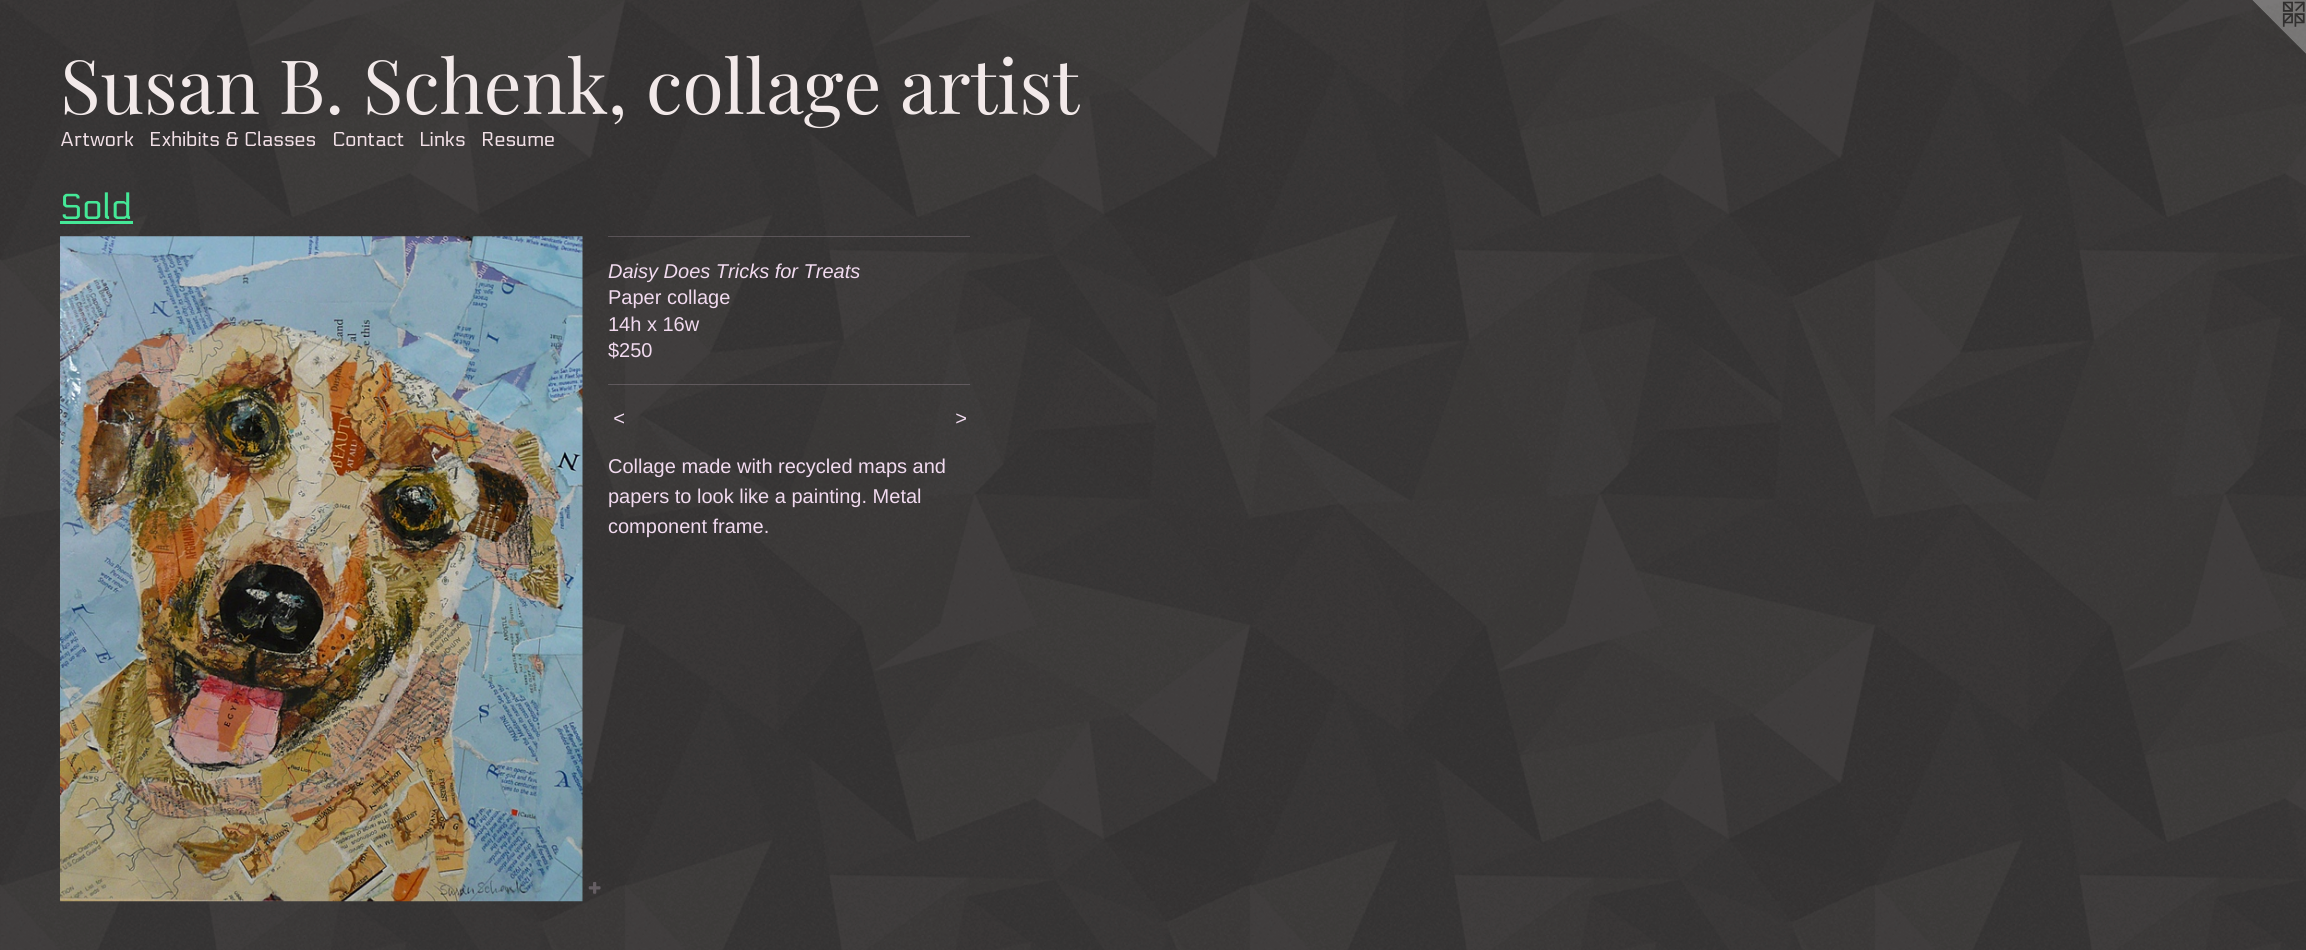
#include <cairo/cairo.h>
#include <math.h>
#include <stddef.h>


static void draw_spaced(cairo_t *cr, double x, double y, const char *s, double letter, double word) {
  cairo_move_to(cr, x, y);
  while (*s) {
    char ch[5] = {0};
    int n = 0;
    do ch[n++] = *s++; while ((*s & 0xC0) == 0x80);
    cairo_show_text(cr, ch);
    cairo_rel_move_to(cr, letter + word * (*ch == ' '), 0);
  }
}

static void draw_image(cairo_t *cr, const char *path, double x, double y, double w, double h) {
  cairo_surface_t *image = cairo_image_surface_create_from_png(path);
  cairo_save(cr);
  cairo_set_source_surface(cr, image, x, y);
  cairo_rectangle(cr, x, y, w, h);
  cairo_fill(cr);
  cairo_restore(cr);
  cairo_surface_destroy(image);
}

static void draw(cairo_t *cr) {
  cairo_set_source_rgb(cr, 1, 1, 1);
  cairo_paint(cr);
  draw_image(cr, "images/1.png", 0, 0, 2306, 950);
  draw_image(cr, "images/2.png", 2252, 0, 54, 54);
  cairo_set_source_rgb(cr, 69 / 255.0, 232 / 255.0, 151 / 255.0);
  cairo_rectangle(cr, 60, 221, 73, 3);
  cairo_fill(cr);
  draw_image(cr, "images/3.png", 60, 236, 523, 666);
  draw_image(cr, "images/4.png", 588, 882, 13, 12);
  cairo_set_source_rgba(cr, 241 / 255.0, 218 / 255.0, 239 / 255.0, 0.2);
  cairo_rectangle(cr, 608, 236, 362, 1);
  cairo_fill(cr);
  cairo_rectangle(cr, 608, 384, 362, 1);
  cairo_fill(cr);
  cairo_select_font_face(cr, "Playfair Display", CAIRO_FONT_SLANT_NORMAL, CAIRO_FONT_WEIGHT_NORMAL);
  cairo_set_font_size(cr, 75);
  cairo_set_source_rgb(cr, 242 / 255.0, 233 / 255.0, 233 / 255.0);
  cairo_move_to(cr, 60, 114);
  cairo_show_text(cr, "Susan B. Schenk, collage artist");
  cairo_select_font_face(cr, "Electrolize", CAIRO_FONT_SLANT_NORMAL, CAIRO_FONT_WEIGHT_NORMAL);
  cairo_set_font_size(cr, 20);
  cairo_set_source_rgb(cr, 242 / 255.0, 224 / 255.0, 231 / 255.0);
  cairo_move_to(cr, 60, 146);
  cairo_show_text(cr, "Artwork");
  cairo_move_to(cr, 149, 146);
  cairo_show_text(cr, "Exhibits & Classes");
  cairo_move_to(cr, 332, 146);
  cairo_show_text(cr, "Contact");
  cairo_move_to(cr, 419, 146);
  cairo_show_text(cr, "Links");
  cairo_move_to(cr, 481, 146);
  cairo_show_text(cr, "Resume");
  cairo_set_font_size(cr, 36);
  cairo_set_source_rgb(cr, 69 / 255.0, 232 / 255.0, 151 / 255.0);
  cairo_move_to(cr, 60, 219);
  cairo_show_text(cr, "Sold");
  cairo_select_font_face(cr, "Liberation Sans", CAIRO_FONT_SLANT_ITALIC, CAIRO_FONT_WEIGHT_NORMAL);
  cairo_set_font_size(cr, 20);
  cairo_set_source_rgb(cr, 241 / 255.0, 218 / 255.0, 239 / 255.0);
  cairo_move_to(cr, 608, 278);
  cairo_show_text(cr, "Daisy Does Tricks for Treats");
  cairo_select_font_face(cr, "Liberation Sans", CAIRO_FONT_SLANT_NORMAL, CAIRO_FONT_WEIGHT_NORMAL);
  cairo_move_to(cr, 608, 304);
  cairo_show_text(cr, "Paper collage");
  cairo_move_to(cr, 608, 331);
  cairo_show_text(cr, "14h x 16w");
  cairo_move_to(cr, 608, 357);
  cairo_show_text(cr, "$250");
  cairo_select_font_face(cr, "Liberation Sans", CAIRO_FONT_SLANT_ITALIC, CAIRO_FONT_WEIGHT_NORMAL);
  draw_spaced(cr, 613, 425, "<", 1, 0);
  draw_spaced(cr, 955, 425, ">", 1, 0);
  cairo_select_font_face(cr, "Liberation Sans", CAIRO_FONT_SLANT_NORMAL, CAIRO_FONT_WEIGHT_NORMAL);
  cairo_move_to(cr, 608, 473);
  cairo_show_text(cr, "Collage made with recycled maps and");
  cairo_move_to(cr, 608, 503);
  cairo_show_text(cr, "papers to look like a painting. Metal");
  cairo_move_to(cr, 608, 533);
  cairo_show_text(cr, "component frame.");
}

int main(void) {
  cairo_surface_t *surface = cairo_image_surface_create(CAIRO_FORMAT_RGB24, 2306, 950);
  cairo_t *cr = cairo_create(surface);
  cairo_font_options_t *options = cairo_font_options_create();
  cairo_font_options_set_hint_metrics(options, CAIRO_HINT_METRICS_OFF);
  cairo_font_options_set_hint_style(options, CAIRO_HINT_STYLE_NONE);
  cairo_set_font_options(cr, options);
  cairo_set_miter_limit(cr, 4);
  draw(cr);
  cairo_surface_write_to_png(surface, "out.png");
  cairo_font_options_destroy(options);
  cairo_destroy(cr);
  cairo_surface_destroy(surface);
  return 0;
}
